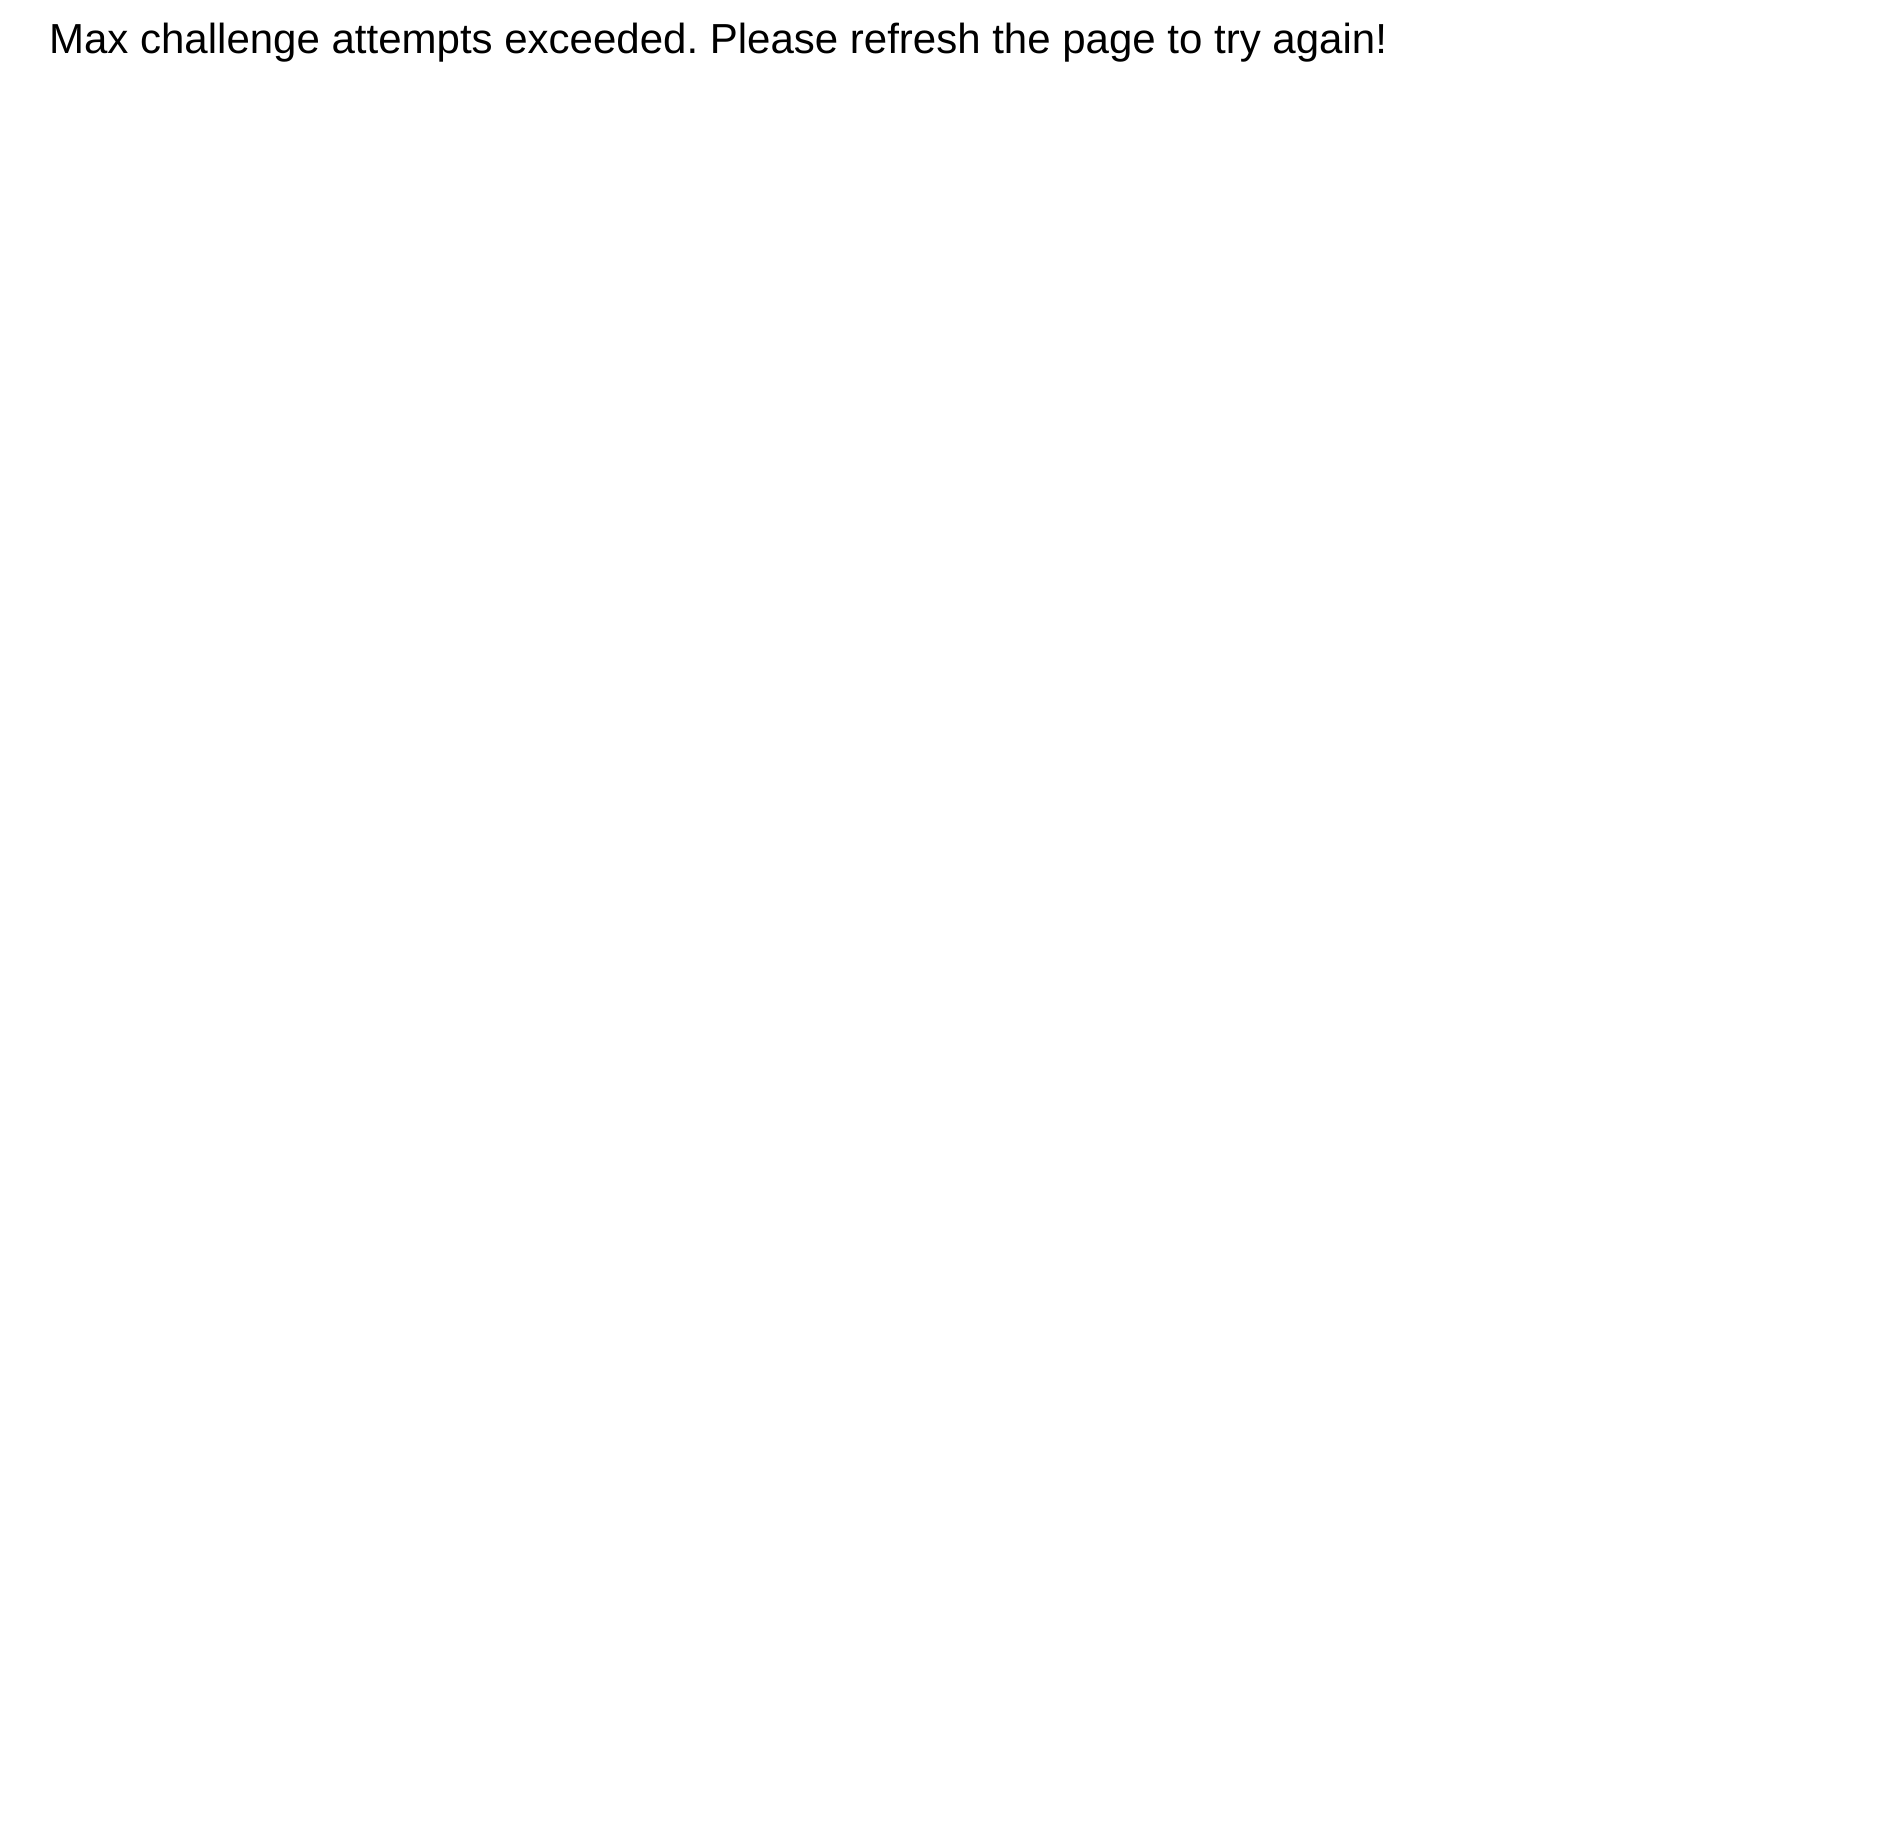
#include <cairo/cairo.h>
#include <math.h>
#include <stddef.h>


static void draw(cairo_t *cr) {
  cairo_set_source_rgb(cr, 1, 1, 1);
  cairo_paint(cr);
  cairo_select_font_face(cr, "Liberation Sans", CAIRO_FONT_SLANT_NORMAL, CAIRO_FONT_WEIGHT_NORMAL);
  cairo_set_font_size(cr, 42);
  cairo_set_source_rgb(cr, 0, 0, 0);
  cairo_move_to(cr, 49, 53);
  cairo_show_text(cr, "Max challenge attempts exceeded. Please refresh the page to try again!");
}

int main(void) {
  cairo_surface_t *surface = cairo_image_surface_create(CAIRO_FORMAT_RGB24, 1899, 1834);
  cairo_t *cr = cairo_create(surface);
  cairo_font_options_t *options = cairo_font_options_create();
  cairo_font_options_set_hint_metrics(options, CAIRO_HINT_METRICS_OFF);
  cairo_font_options_set_hint_style(options, CAIRO_HINT_STYLE_NONE);
  cairo_set_font_options(cr, options);
  cairo_set_miter_limit(cr, 4);
  draw(cr);
  cairo_surface_write_to_png(surface, "out.png");
  cairo_font_options_destroy(options);
  cairo_destroy(cr);
  cairo_surface_destroy(surface);
  return 0;
}
